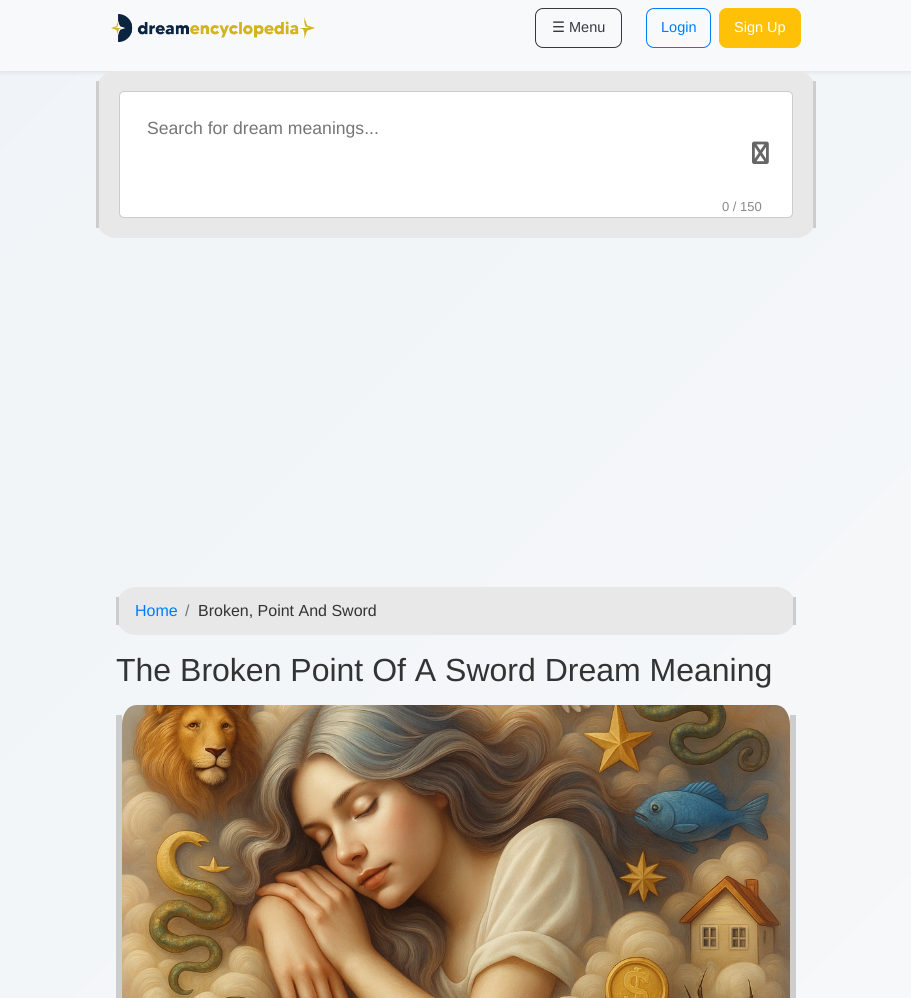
#include <cairo/cairo.h>
#include <math.h>
#include <stddef.h>


static void rounded_rect(cairo_t *cr, double x, double y, double w, double h, double r) {
  cairo_new_sub_path(cr);
  cairo_arc(cr, x + w - r, y + h - r, r, 0, M_PI / 2);
  cairo_arc(cr, x + r, y + h - r, r, M_PI / 2, M_PI);
  cairo_arc(cr, x + r, y + r, r, M_PI, 1.5 * M_PI);
  cairo_arc(cr, x + w - r, y + r, r, 1.5 * M_PI, 2 * M_PI);
  cairo_close_path(cr);
}

static void draw_shadow(cairo_t *cr, double x, double y, double w, double h, double r, double blur, double alpha) {
  cairo_push_group_with_content(cr, CAIRO_CONTENT_ALPHA);
  cairo_set_operator(cr, CAIRO_OPERATOR_SOURCE);
  for (int i = 15; i >= -15 && fmin(w, h) + blur * i / 3 > 0; i -= 2) {
    double e = blur * i / 6;
    cairo_set_source_rgba(cr, 0, 0, 0, alpha * erfc((i - 1) / 8.5) / 2);
    rounded_rect(cr, x - e, y - e, w + 2 * e, h + 2 * e, fmax(0, fmin(r + e + blur * .6, fmin(w, h) / 2 + e)));
    cairo_fill(cr);
  }
  cairo_pattern_t *soft = cairo_pop_group(cr);
  cairo_mask(cr, soft);
  cairo_pattern_destroy(soft);
}

static void draw_image(cairo_t *cr, const char *path, double x, double y, double w, double h) {
  cairo_surface_t *image = cairo_image_surface_create_from_png(path);
  cairo_save(cr);
  cairo_set_source_surface(cr, image, x, y);
  cairo_rectangle(cr, x, y, w, h);
  cairo_fill(cr);
  cairo_restore(cr);
  cairo_surface_destroy(image);
}

static void draw(cairo_t *cr) {
  cairo_pattern_t *gradient;
  cairo_set_source_rgb(cr, 1, 1, 1);
  cairo_paint(cr);
  gradient = cairo_pattern_create_linear(-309, 309, 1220, 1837);
  cairo_pattern_add_color_stop_rgba(gradient, 0, 240 / 255.0, 244 / 255.0, 248 / 255.0, 1);
  cairo_pattern_add_color_stop_rgba(gradient, 1, 250 / 255.0, 250 / 255.0, 250 / 255.0, 1);
  cairo_set_source(cr, gradient);
  cairo_pattern_destroy(gradient);
  cairo_rectangle(cr, 0, 71, 911, 927);
  cairo_fill(cr);
  cairo_set_source_rgb(cr, 0, 0, 0);
  draw_shadow(cr, 0, 2, 911, 71, 0, 2, 0.07);
  cairo_set_source_rgb(cr, 248 / 255.0, 249 / 255.0, 250 / 255.0);
  cairo_rectangle(cr, 0, 0, 911, 71);
  cairo_fill(cr);
  draw_image(cr, "images/1.png", 111, 14, 204, 28);
  rounded_rect(cr, 535.5, 8.5, 86, 39, 7.5);
  cairo_set_source_rgb(cr, 52 / 255.0, 58 / 255.0, 64 / 255.0);
  cairo_set_line_width(cr, 1);
  cairo_stroke(cr);
  rounded_rect(cr, 646.5, 8.5, 64, 39, 7.5);
  cairo_set_source_rgb(cr, 0, 123 / 255.0, 1);
  cairo_stroke(cr);
  cairo_set_source_rgb(cr, 1, 193 / 255.0, 7 / 255.0);
  rounded_rect(cr, 719.5, 8.5, 81, 39, 7.5);
  cairo_fill_preserve(cr);
  cairo_stroke(cr);
  cairo_set_source_rgb(cr, 232 / 255.0, 232 / 255.0, 232 / 255.0);
  rounded_rect(cr, 96, 71, 720, 167, 20);
  cairo_fill(cr);
  cairo_set_source_rgb(cr, 205 / 255.0, 205 / 255.0, 205 / 255.0);
  cairo_rectangle(cr, 813, 81, 3, 147);
  cairo_fill(cr);
  cairo_rectangle(cr, 96, 81, 3, 147);
  cairo_fill(cr);
  cairo_set_source_rgb(cr, 1, 1, 1);
  rounded_rect(cr, 119.5, 91.5, 673, 126, 4.5);
  cairo_fill_preserve(cr);
  cairo_set_source_rgb(cr, 204 / 255.0, 204 / 255.0, 204 / 255.0);
  cairo_stroke(cr);
  draw_image(cr, "images/2.png", 752, 141, 17, 23);
  cairo_set_source_rgb(cr, 232 / 255.0, 232 / 255.0, 232 / 255.0);
  rounded_rect(cr, 116, 587, 680, 48, 20);
  cairo_fill(cr);
  cairo_set_source_rgb(cr, 205 / 255.0, 205 / 255.0, 205 / 255.0);
  cairo_rectangle(cr, 793, 597, 3, 28);
  cairo_fill(cr);
  cairo_rectangle(cr, 116, 597, 3, 28);
  cairo_fill(cr);
  cairo_rectangle(cr, 116, 715, 6, 283);
  cairo_fill(cr);
  draw_image(cr, "images/3.png", 122, 705, 668, 293);
  cairo_rectangle(cr, 790, 715, 6, 283);
  cairo_fill(cr);
  cairo_select_font_face(cr, "DejaVu Sans", CAIRO_FONT_SLANT_NORMAL, CAIRO_FONT_WEIGHT_NORMAL);
  cairo_set_font_size(cr, 14.5);
  cairo_set_source_rgb(cr, 52 / 255.0, 58 / 255.0, 64 / 255.0);
  cairo_move_to(cr, 552, 32);
  cairo_show_text(cr, "☰");
  cairo_select_font_face(cr, "Liberation Sans", CAIRO_FONT_SLANT_NORMAL, CAIRO_FONT_WEIGHT_NORMAL);
  cairo_move_to(cr, 569, 32);
  cairo_show_text(cr, "Menu");
  cairo_set_source_rgb(cr, 0, 123 / 255.0, 1);
  cairo_move_to(cr, 661, 32);
  cairo_show_text(cr, "Login");
  cairo_set_source_rgb(cr, 1, 1, 1);
  cairo_move_to(cr, 734, 32);
  cairo_show_text(cr, "Sign Up");
  cairo_set_font_size(cr, 17.6);
  cairo_set_source_rgb(cr, 117 / 255.0, 117 / 255.0, 117 / 255.0);
  cairo_move_to(cr, 147, 134);
  cairo_show_text(cr, "Search for dream meanings...");
  cairo_set_font_size(cr, 13);
  cairo_set_source_rgb(cr, 136 / 255.0, 136 / 255.0, 136 / 255.0);
  cairo_move_to(cr, 722, 211);
  cairo_show_text(cr, "0 / 150");
  cairo_set_font_size(cr, 16);
  cairo_set_source_rgb(cr, 0, 123 / 255.0, 1);
  cairo_move_to(cr, 135, 616);
  cairo_show_text(cr, "Home");
  cairo_set_source_rgb(cr, 108 / 255.0, 117 / 255.0, 125 / 255.0);
  cairo_move_to(cr, 185, 616);
  cairo_show_text(cr, "/");
  cairo_set_source_rgb(cr, 51 / 255.0, 51 / 255.0, 51 / 255.0);
  cairo_move_to(cr, 198, 616);
  cairo_show_text(cr, "Broken, Point And Sword");
  cairo_set_font_size(cr, 32);
  cairo_move_to(cr, 116, 681);
  cairo_show_text(cr, "The Broken Point Of A Sword Dream Meaning");
}

int main(void) {
  cairo_surface_t *surface = cairo_image_surface_create(CAIRO_FORMAT_RGB24, 911, 998);
  cairo_t *cr = cairo_create(surface);
  cairo_font_options_t *options = cairo_font_options_create();
  cairo_font_options_set_hint_metrics(options, CAIRO_HINT_METRICS_OFF);
  cairo_font_options_set_hint_style(options, CAIRO_HINT_STYLE_NONE);
  cairo_set_font_options(cr, options);
  cairo_set_miter_limit(cr, 4);
  draw(cr);
  cairo_surface_write_to_png(surface, "out.png");
  cairo_font_options_destroy(options);
  cairo_destroy(cr);
  cairo_surface_destroy(surface);
  return 0;
}
